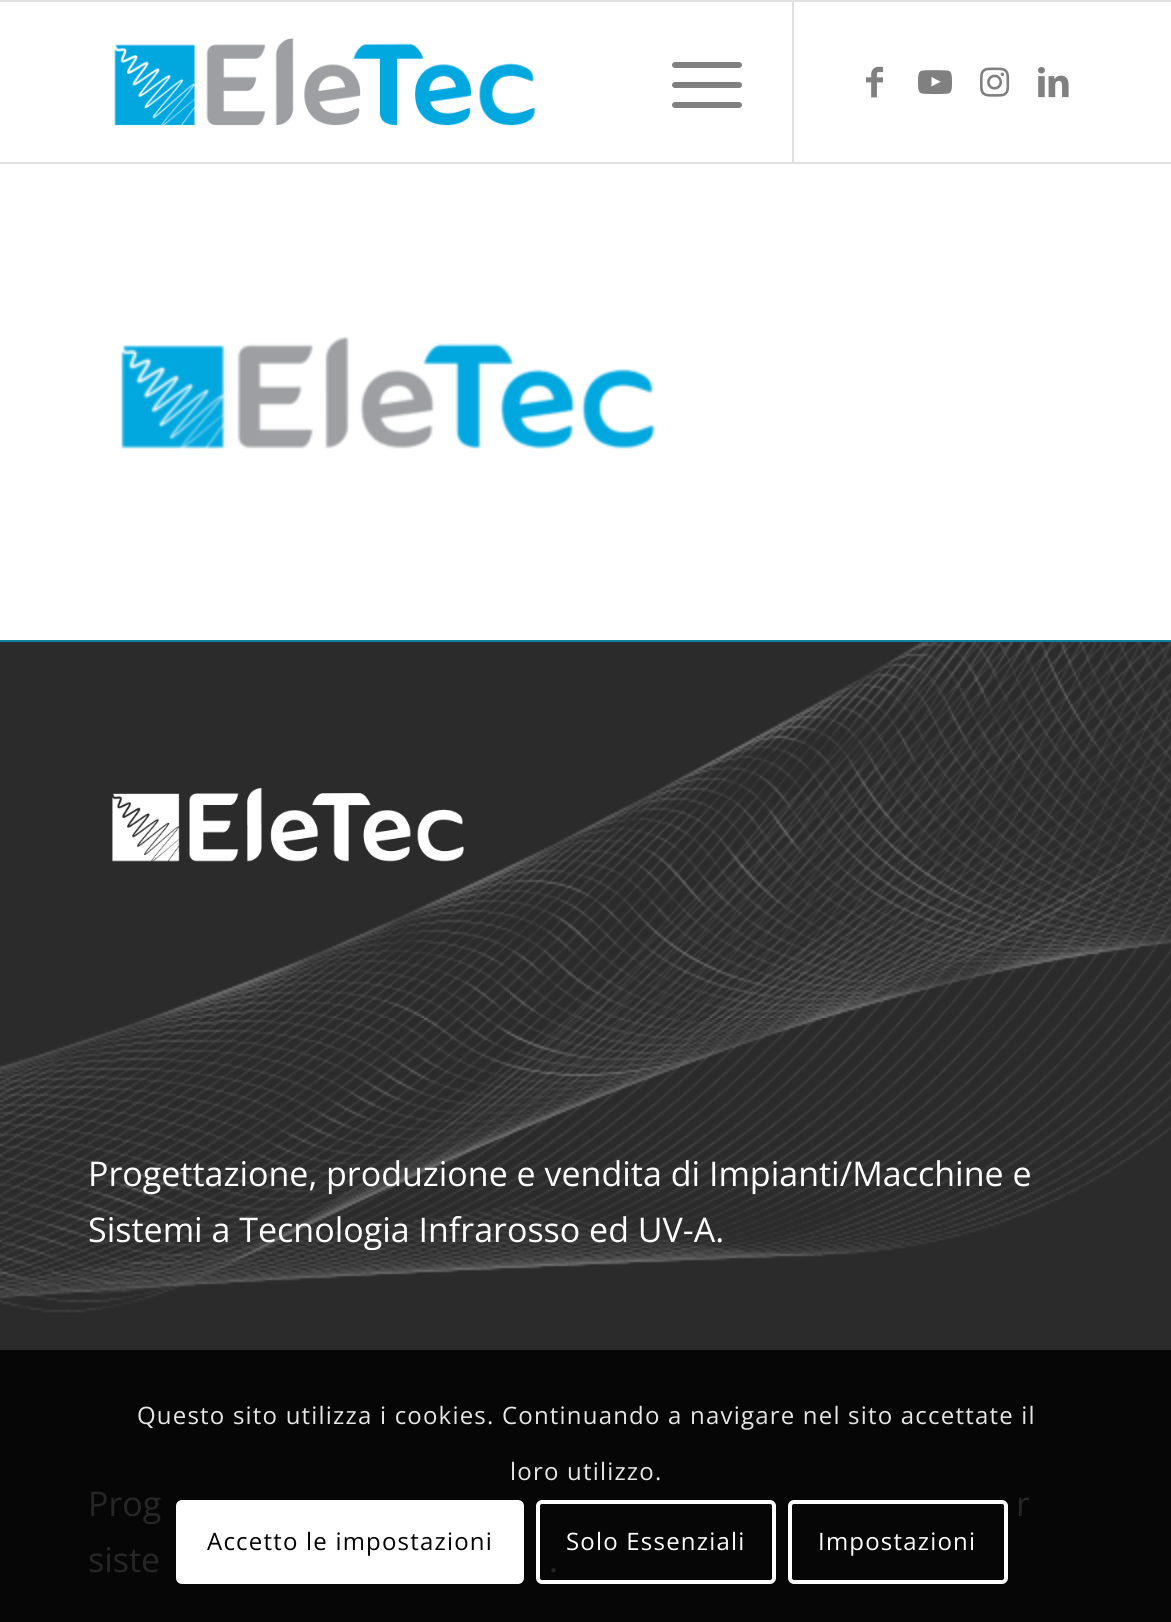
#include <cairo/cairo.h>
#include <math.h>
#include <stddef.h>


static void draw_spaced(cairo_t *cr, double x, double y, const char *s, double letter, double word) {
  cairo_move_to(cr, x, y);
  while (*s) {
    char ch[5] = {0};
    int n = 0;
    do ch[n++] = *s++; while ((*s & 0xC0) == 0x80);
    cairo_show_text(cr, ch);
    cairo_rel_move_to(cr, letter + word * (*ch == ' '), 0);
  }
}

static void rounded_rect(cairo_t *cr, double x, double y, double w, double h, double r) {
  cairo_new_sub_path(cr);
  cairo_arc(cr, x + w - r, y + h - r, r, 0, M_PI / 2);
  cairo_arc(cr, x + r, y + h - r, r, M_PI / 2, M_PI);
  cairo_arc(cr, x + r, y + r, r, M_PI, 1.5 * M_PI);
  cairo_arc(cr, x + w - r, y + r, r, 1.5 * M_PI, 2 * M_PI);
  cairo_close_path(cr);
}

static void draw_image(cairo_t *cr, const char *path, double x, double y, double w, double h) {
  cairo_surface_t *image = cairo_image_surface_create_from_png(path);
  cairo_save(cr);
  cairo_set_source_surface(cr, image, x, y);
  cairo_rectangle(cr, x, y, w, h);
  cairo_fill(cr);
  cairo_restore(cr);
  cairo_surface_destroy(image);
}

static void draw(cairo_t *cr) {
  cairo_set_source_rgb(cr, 1, 1, 1);
  cairo_paint(cr);
  cairo_set_source_rgb(cr, 225 / 255.0, 225 / 255.0, 225 / 255.0);
  cairo_rectangle(cr, 0, 0, 1171, 2);
  cairo_fill(cr);
  cairo_rectangle(cr, 0, 162, 1171, 2);
  cairo_fill(cr);
  draw_image(cr, "images/1.png", 114, 38, 421, 88);
  cairo_rectangle(cr, 792, 2, 2, 160);
  cairo_fill(cr);
  cairo_set_source_rgb(cr, 128 / 255.0, 128 / 255.0, 128 / 255.0);
  rounded_rect(cr, 672, 82, 70, 6, 3);
  cairo_fill(cr);
  rounded_rect(cr, 672, 62, 70, 6, 3);
  cairo_fill(cr);
  rounded_rect(cr, 672, 102, 70, 6, 3);
  cairo_fill(cr);
  draw_image(cr, "images/2.png", 866, 66, 17, 32);
  draw_image(cr, "images/3.png", 918, 70, 34, 25);
  draw_image(cr, "images/4.png", 980, 67, 30, 30);
  draw_image(cr, "images/5.png", 1038, 67, 31, 31);
  draw_image(cr, "images/6.png", 120, 336, 535, 113);
  cairo_set_source_rgb(cr, 43 / 255.0, 43 / 255.0, 43 / 255.0);
  cairo_rectangle(cr, 0, 642, 1171, 708);
  cairo_fill(cr);
  cairo_set_source_rgb(cr, 6 / 255.0, 6 / 255.0, 6 / 255.0);
  cairo_rectangle(cr, 0, 1350, 1171, 272);
  cairo_fill(cr);
  draw_image(cr, "images/7.png", 0, 642, 1171, 671);
  cairo_set_source_rgb(cr, 15 / 255.0, 129 / 255.0, 161 / 255.0);
  cairo_rectangle(cr, 0, 640, 1171, 2);
  cairo_fill(cr);
  draw_image(cr, "images/8.png", 112, 788, 352, 74);
  cairo_set_source_rgb(cr, 1, 1, 1);
  rounded_rect(cr, 176, 1500, 348, 84, 6);
  cairo_fill(cr);
  rounded_rect(cr, 538, 1502, 236, 80, 4);
  cairo_set_line_width(cr, 4);
  cairo_stroke(cr);
  rounded_rect(cr, 790, 1502, 216, 80, 4);
  cairo_stroke(cr);
  cairo_select_font_face(cr, "Open Sans", CAIRO_FONT_SLANT_NORMAL, CAIRO_FONT_WEIGHT_NORMAL);
  cairo_set_font_size(cr, 34);
  cairo_move_to(cr, 88, 1186);
  cairo_show_text(cr, "Progettazione, produzione e vendita di Impianti/Macchine e");
  cairo_move_to(cr, 88, 1242);
  cairo_show_text(cr, "Sistemi a Tecnologia Infrarosso ed UV-A.");
  cairo_set_source_rgb(cr, 38 / 255.0, 38 / 255.0, 38 / 255.0);
  cairo_move_to(cr, 88, 1516);
  cairo_show_text(cr, "Prog");
  cairo_move_to(cr, 1016, 1516);
  cairo_show_text(cr, "r");
  cairo_move_to(cr, 88, 1572);
  cairo_show_text(cr, "siste");
  cairo_move_to(cr, 549, 1572);
  cairo_show_text(cr, ".");
  cairo_set_font_size(cr, 24);
  cairo_set_source_rgb(cr, 230 / 255.0, 230 / 255.0, 230 / 255.0);
  draw_spaced(cr, 137, 1424, "Questo sito utilizza i cookies. Continuando a navigare nel sito accettate il", 1.2, 0);
  draw_spaced(cr, 510, 1480, "loro utilizzo.", 1.2, 0);
  cairo_set_source_rgb(cr, 0, 0, 0);
  draw_spaced(cr, 207, 1550, "Accetto le impostazioni", 1.2, 0);
  cairo_set_source_rgb(cr, 1, 1, 1);
  draw_spaced(cr, 566, 1550, "Solo Essenziali", 1.2, 0);
  draw_spaced(cr, 818, 1550, "Impostazioni", 1.2, 0);
}

int main(void) {
  cairo_surface_t *surface = cairo_image_surface_create(CAIRO_FORMAT_RGB24, 1171, 1622);
  cairo_t *cr = cairo_create(surface);
  cairo_font_options_t *options = cairo_font_options_create();
  cairo_font_options_set_hint_metrics(options, CAIRO_HINT_METRICS_OFF);
  cairo_font_options_set_hint_style(options, CAIRO_HINT_STYLE_NONE);
  cairo_set_font_options(cr, options);
  cairo_set_miter_limit(cr, 4);
  draw(cr);
  cairo_surface_write_to_png(surface, "out.png");
  cairo_font_options_destroy(options);
  cairo_destroy(cr);
  cairo_surface_destroy(surface);
  return 0;
}
